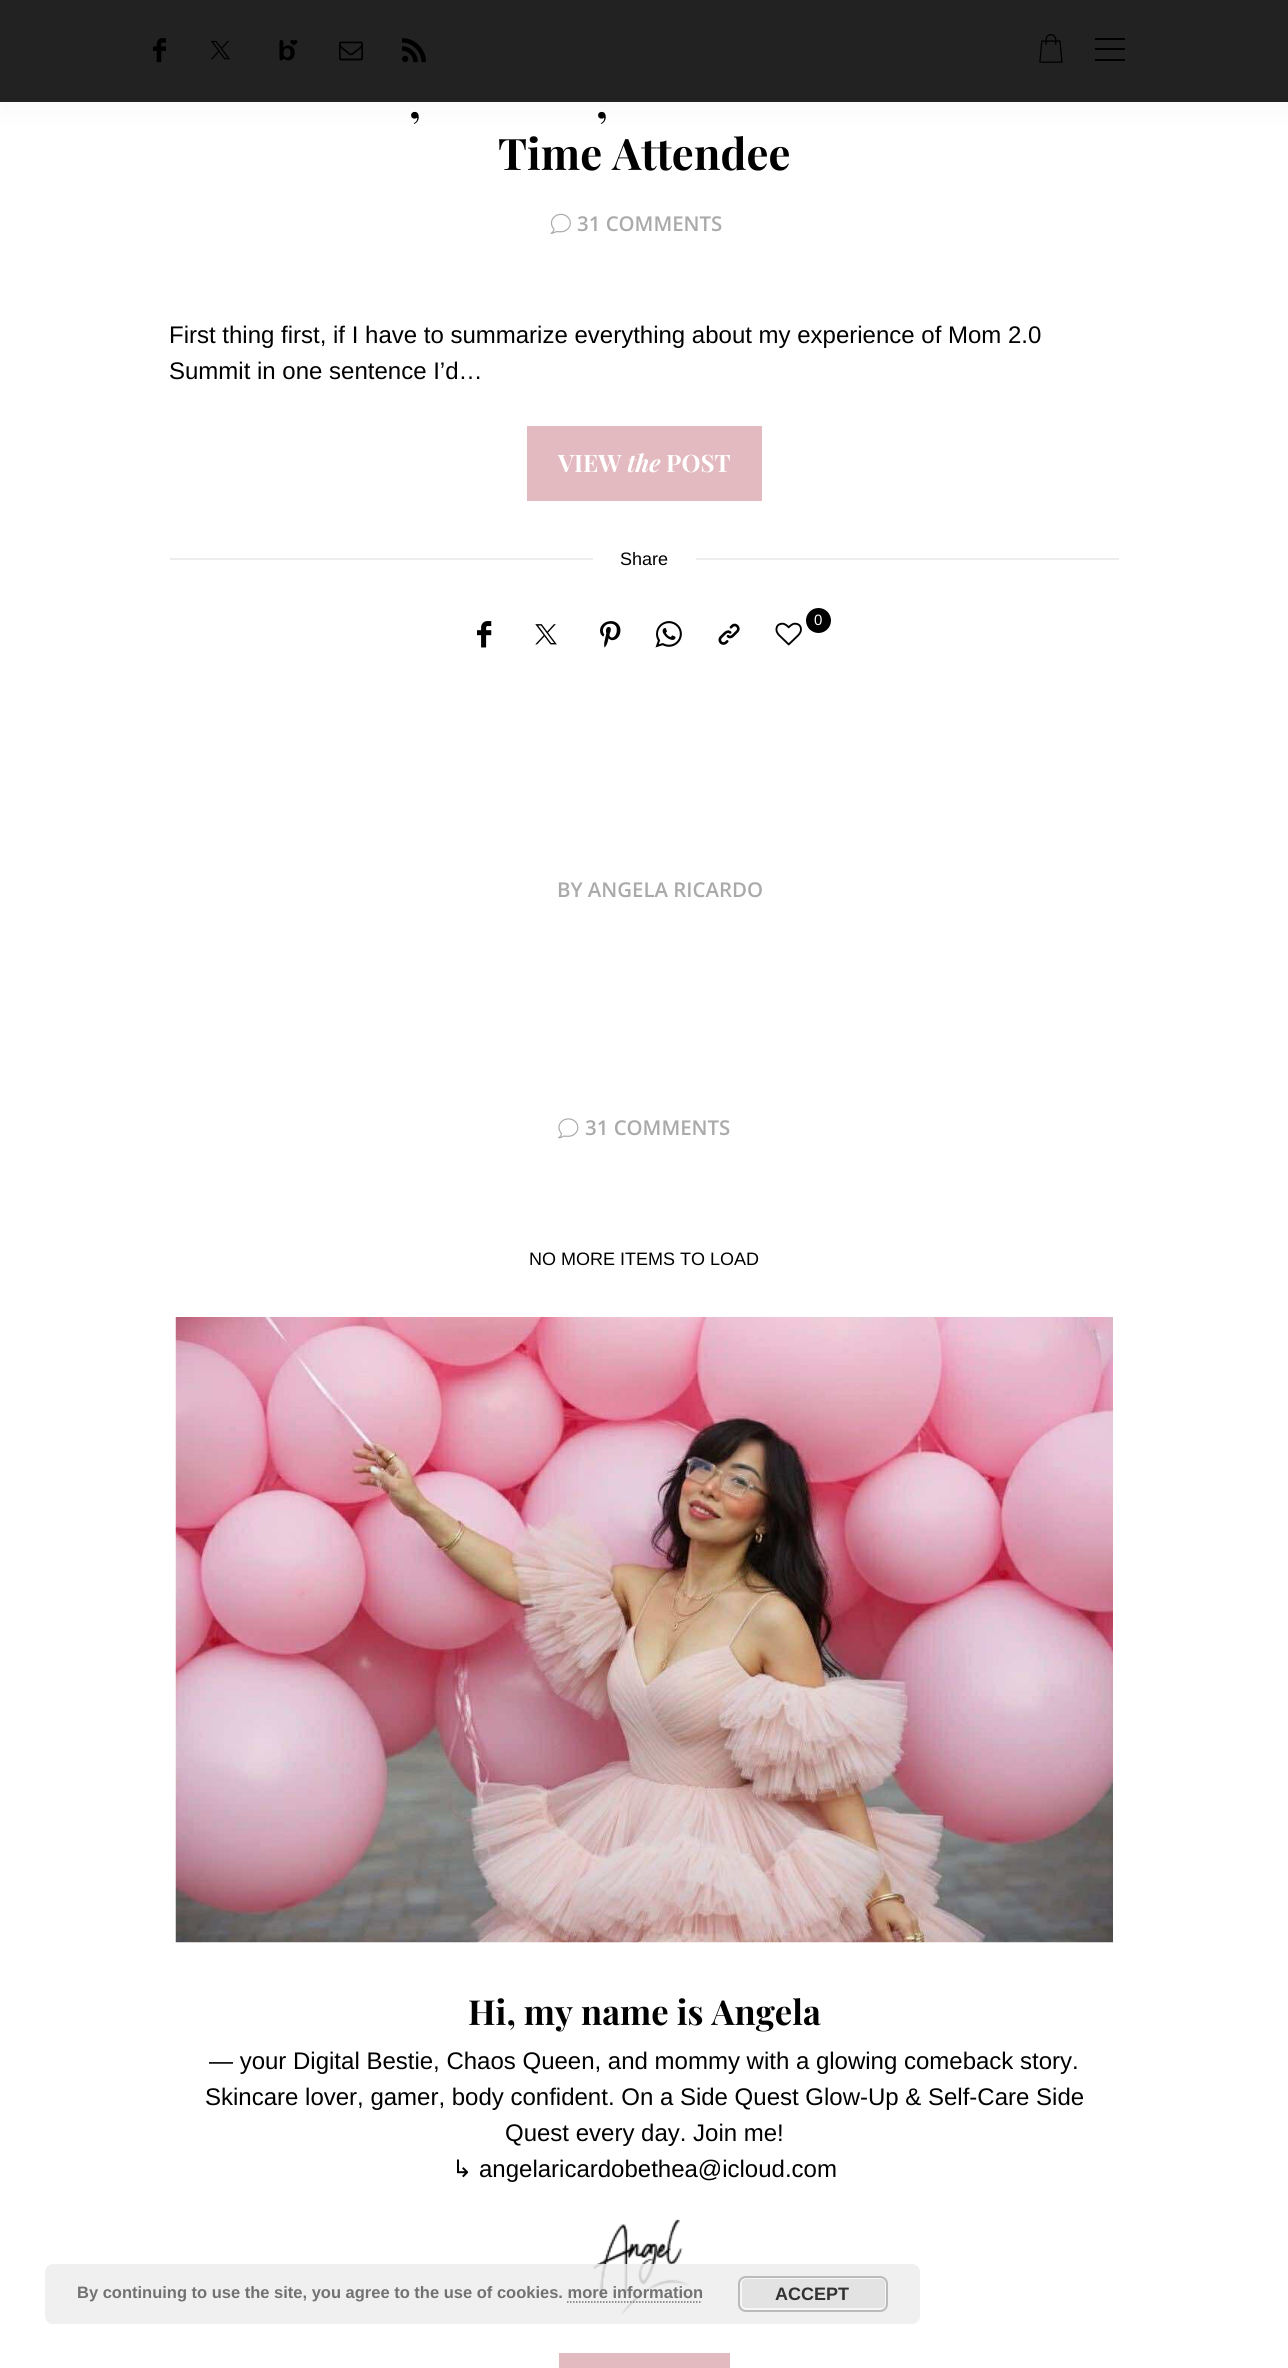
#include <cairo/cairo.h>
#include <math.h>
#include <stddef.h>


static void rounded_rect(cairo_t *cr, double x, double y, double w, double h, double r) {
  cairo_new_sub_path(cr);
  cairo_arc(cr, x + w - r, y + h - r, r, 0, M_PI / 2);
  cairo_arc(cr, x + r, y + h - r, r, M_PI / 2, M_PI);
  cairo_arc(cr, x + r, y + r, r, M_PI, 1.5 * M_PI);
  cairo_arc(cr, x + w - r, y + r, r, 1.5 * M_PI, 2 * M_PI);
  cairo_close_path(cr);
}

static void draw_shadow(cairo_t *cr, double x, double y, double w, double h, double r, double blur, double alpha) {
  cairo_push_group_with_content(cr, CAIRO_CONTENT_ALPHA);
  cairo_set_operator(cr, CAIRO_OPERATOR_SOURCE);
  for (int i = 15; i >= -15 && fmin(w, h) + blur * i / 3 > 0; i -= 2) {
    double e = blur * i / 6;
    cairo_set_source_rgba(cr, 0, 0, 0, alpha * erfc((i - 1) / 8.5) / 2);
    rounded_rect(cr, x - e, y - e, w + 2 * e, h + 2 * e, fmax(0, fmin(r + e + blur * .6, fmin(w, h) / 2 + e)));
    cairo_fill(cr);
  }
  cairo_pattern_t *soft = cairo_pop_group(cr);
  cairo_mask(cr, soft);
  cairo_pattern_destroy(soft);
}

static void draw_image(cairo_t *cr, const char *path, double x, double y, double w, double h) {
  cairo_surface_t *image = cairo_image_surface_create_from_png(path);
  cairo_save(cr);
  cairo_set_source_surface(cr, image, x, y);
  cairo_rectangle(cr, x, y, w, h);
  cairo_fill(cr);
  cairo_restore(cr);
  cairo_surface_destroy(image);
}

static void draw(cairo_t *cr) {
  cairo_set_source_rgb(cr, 1, 1, 1);
  cairo_paint(cr);
  cairo_set_source_rgb(cr, 0, 0, 0);
  draw_shadow(cr, 0, 3, 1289, 102, 0, 18, 0.04);
  cairo_set_source_rgb(cr, 34 / 255.0, 34 / 255.0, 34 / 255.0);
  cairo_rectangle(cr, 0, 0, 1288, 102);
  cairo_fill(cr);
  draw_image(cr, "images/1.png", 153, 38, 13, 25);
  draw_image(cr, "images/2.png", 211, 40, 19, 20);
  draw_image(cr, "images/3.png", 279, 39, 19, 22);
  draw_image(cr, "images/4.png", 339, 41, 24, 20);
  draw_image(cr, "images/5.png", 402, 38, 24, 25);
  draw_image(cr, "images/6.png", 1039, 34, 24, 29);
  cairo_set_source_rgb(cr, 0, 0, 0);
  cairo_rectangle(cr, 1095, 48, 30, 2);
  cairo_fill(cr);
  cairo_rectangle(cr, 1095, 38, 30, 2);
  cairo_fill(cr);
  cairo_rectangle(cr, 1095, 59, 30, 2);
  cairo_fill(cr);
  draw_image(cr, "images/7.png", 550, 213, 21, 21);
  cairo_set_source_rgb(cr, 227 / 255.0, 186 / 255.0, 191 / 255.0);
  cairo_rectangle(cr, 527, 426, 235, 75);
  cairo_fill(cr);
  cairo_set_source_rgb(cr, 238 / 255.0, 238 / 255.0, 238 / 255.0);
  cairo_rectangle(cr, 170, 558, 423, 2);
  cairo_fill(cr);
  cairo_rectangle(cr, 696, 558, 423, 2);
  cairo_fill(cr);
  draw_image(cr, "images/8.png", 477, 621, 15, 27);
  draw_image(cr, "images/9.png", 535, 624, 22, 21);
  draw_image(cr, "images/10.png", 600, 621, 21, 27);
  draw_image(cr, "images/11.png", 655, 621, 27, 27);
  draw_image(cr, "images/12.png", 718, 623, 22, 22);
  cairo_set_source_rgb(cr, 0, 0, 0);
  cairo_arc(cr, 818.5, 620.5, 12.5, 0, 2 * M_PI);
  cairo_fill(cr);
  draw_image(cr, "images/13.png", 775, 622, 27, 24);
  draw_image(cr, "images/14.png", 558, 1118, 21, 21);
  draw_image(cr, "images/15.png", 175, 1317, 938, 626);
  draw_image(cr, "images/16.png", 592, 2219, 98, 96);
  cairo_set_source_rgb(cr, 227 / 255.0, 186 / 255.0, 191 / 255.0);
  cairo_rectangle(cr, 559, 2353, 171, 15);
  cairo_fill(cr);
  cairo_set_source_rgba(cr, 237 / 255.0, 237 / 255.0, 237 / 255.0, 0.85);
  rounded_rect(cr, 45, 2264, 875, 60, 8);
  cairo_fill(cr);
  cairo_set_source_rgb(cr, 227 / 255.0, 227 / 255.0, 227 / 255.0);
  rounded_rect(cr, 738, 2276, 150, 36, 8);
  cairo_fill(cr);
  rounded_rect(cr, 741, 2278, 145, 31, 5);
  cairo_set_source_rgb(cr, 246 / 255.0, 246 / 255.0, 246 / 255.0);
  cairo_stroke(cr);
  rounded_rect(cr, 739, 2277, 148, 34, 7);
  cairo_set_source_rgb(cr, 187 / 255.0, 187 / 255.0, 187 / 255.0);
  cairo_stroke(cr);
  cairo_new_path(cr);
  cairo_move_to(cr, 567, 2302);
  cairo_line_to(cr, 702, 2302);
  cairo_set_source_rgb(cr, 114 / 255.0, 114 / 255.0, 114 / 255.0);
  cairo_set_line_width(cr, 1.5);
  cairo_set_dash(cr, (double[]){1.5, 1.5}, 2, 0);
  cairo_stroke(cr);
  cairo_select_font_face(cr, "Playfair Display", CAIRO_FONT_SLANT_NORMAL, CAIRO_FONT_WEIGHT_BOLD);
  cairo_set_font_size(cr, 43.5);
  cairo_set_source_rgb(cr, 0, 0, 0);
  cairo_move_to(cr, 409, 118);
  cairo_show_text(cr, ",");
  cairo_move_to(cr, 596, 118);
  cairo_show_text(cr, ",");
  cairo_move_to(cr, 498, 170);
  cairo_show_text(cr, "Time Attendee");
  cairo_select_font_face(cr, "Open Sans SemiBold", CAIRO_FONT_SLANT_NORMAL, CAIRO_FONT_WEIGHT_NORMAL);
  cairo_set_font_size(cr, 20.4);
  cairo_set_source_rgb(cr, 170 / 255.0, 170 / 255.0, 170 / 255.0);
  cairo_move_to(cr, 577, 231);
  cairo_show_text(cr, "31 COMMENTS");
  cairo_select_font_face(cr, "Liberation Sans", CAIRO_FONT_SLANT_NORMAL, CAIRO_FONT_WEIGHT_NORMAL);
  cairo_set_font_size(cr, 24);
  cairo_set_source_rgb(cr, 0, 0, 0);
  cairo_move_to(cr, 169, 343);
  cairo_show_text(cr, "First thing first, if I have to summarize everything about my experience of Mom 2.0");
  cairo_move_to(cr, 169, 379);
  cairo_show_text(cr, "Summit in one sentence I’d…");
  cairo_select_font_face(cr, "Playfair Display", CAIRO_FONT_SLANT_NORMAL, CAIRO_FONT_WEIGHT_BOLD);
  cairo_set_source_rgb(cr, 1, 1, 1);
  cairo_move_to(cr, 558, 472);
  cairo_show_text(cr, "VIEW");
  cairo_select_font_face(cr, "Playfair Display", CAIRO_FONT_SLANT_ITALIC, CAIRO_FONT_WEIGHT_BOLD);
  cairo_move_to(cr, 627, 472);
  cairo_show_text(cr, "the");
  cairo_select_font_face(cr, "Playfair Display", CAIRO_FONT_SLANT_NORMAL, CAIRO_FONT_WEIGHT_BOLD);
  cairo_move_to(cr, 666, 472);
  cairo_show_text(cr, "POST");
  cairo_select_font_face(cr, "Liberation Sans", CAIRO_FONT_SLANT_NORMAL, CAIRO_FONT_WEIGHT_NORMAL);
  cairo_set_font_size(cr, 18);
  cairo_set_source_rgb(cr, 0, 0, 0);
  cairo_move_to(cr, 620, 565);
  cairo_show_text(cr, "Share");
  cairo_set_font_size(cr, 15);
  cairo_set_source_rgb(cr, 1, 1, 1);
  cairo_move_to(cr, 814, 625);
  cairo_show_text(cr, "0");
  cairo_select_font_face(cr, "Open Sans SemiBold", CAIRO_FONT_SLANT_NORMAL, CAIRO_FONT_WEIGHT_NORMAL);
  cairo_set_font_size(cr, 20.4);
  cairo_set_source_rgb(cr, 170 / 255.0, 170 / 255.0, 170 / 255.0);
  cairo_move_to(cr, 557, 897);
  cairo_show_text(cr, "BY ANGELA RICARDO");
  cairo_move_to(cr, 585, 1135);
  cairo_show_text(cr, "31 COMMENTS");
  cairo_select_font_face(cr, "Liberation Sans", CAIRO_FONT_SLANT_NORMAL, CAIRO_FONT_WEIGHT_NORMAL);
  cairo_set_font_size(cr, 18);
  cairo_set_source_rgb(cr, 0, 0, 0);
  cairo_move_to(cr, 529, 1265);
  cairo_show_text(cr, "NO MORE ITEMS TO LOAD");
  cairo_select_font_face(cr, "Playfair Display", CAIRO_FONT_SLANT_NORMAL, CAIRO_FONT_WEIGHT_BOLD);
  cairo_set_font_size(cr, 34.5);
  cairo_move_to(cr, 468, 2025);
  cairo_show_text(cr, "Hi, my name is Angela");
  cairo_select_font_face(cr, "Liberation Sans", CAIRO_FONT_SLANT_NORMAL, CAIRO_FONT_WEIGHT_NORMAL);
  cairo_set_font_size(cr, 24);
  cairo_move_to(cr, 209, 2069);
  cairo_show_text(cr, "— your Digital Bestie, Chaos Queen, and mommy with a glowing comeback story.");
  cairo_move_to(cr, 205, 2105);
  cairo_show_text(cr, "Skincare lover, gamer, body confident. On a Side Quest Glow-Up & Self-Care Side");
  cairo_move_to(cr, 505, 2141);
  cairo_show_text(cr, "Quest every day. Join me!");
  cairo_select_font_face(cr, "DejaVu Sans", CAIRO_FONT_SLANT_NORMAL, CAIRO_FONT_WEIGHT_NORMAL);
  cairo_move_to(cr, 452, 2177);
  cairo_show_text(cr, "↳");
  cairo_select_font_face(cr, "Liberation Sans", CAIRO_FONT_SLANT_NORMAL, CAIRO_FONT_WEIGHT_NORMAL);
  cairo_move_to(cr, 479, 2177);
  cairo_show_text(cr, "angelaricardobethea@icloud.com");
  cairo_select_font_face(cr, "Liberation Sans", CAIRO_FONT_SLANT_NORMAL, CAIRO_FONT_WEIGHT_BOLD);
  cairo_set_font_size(cr, 16.5);
  cairo_set_source_rgb(cr, 114 / 255.0, 114 / 255.0, 114 / 255.0);
  cairo_move_to(cr, 77, 2298);
  cairo_show_text(cr, "By continuing to use the site, you agree to the use of cookies. more information");
  cairo_set_font_size(cr, 18);
  cairo_set_source_rgb(cr, 51 / 255.0, 51 / 255.0, 51 / 255.0);
  cairo_move_to(cr, 775, 2300);
  cairo_show_text(cr, "ACCEPT");
}

int main(void) {
  cairo_surface_t *surface = cairo_image_surface_create(CAIRO_FORMAT_RGB24, 1288, 2368);
  cairo_t *cr = cairo_create(surface);
  cairo_font_options_t *options = cairo_font_options_create();
  cairo_font_options_set_hint_metrics(options, CAIRO_HINT_METRICS_OFF);
  cairo_font_options_set_hint_style(options, CAIRO_HINT_STYLE_NONE);
  cairo_set_font_options(cr, options);
  cairo_set_miter_limit(cr, 4);
  draw(cr);
  cairo_surface_write_to_png(surface, "out.png");
  cairo_font_options_destroy(options);
  cairo_destroy(cr);
  cairo_surface_destroy(surface);
  return 0;
}
